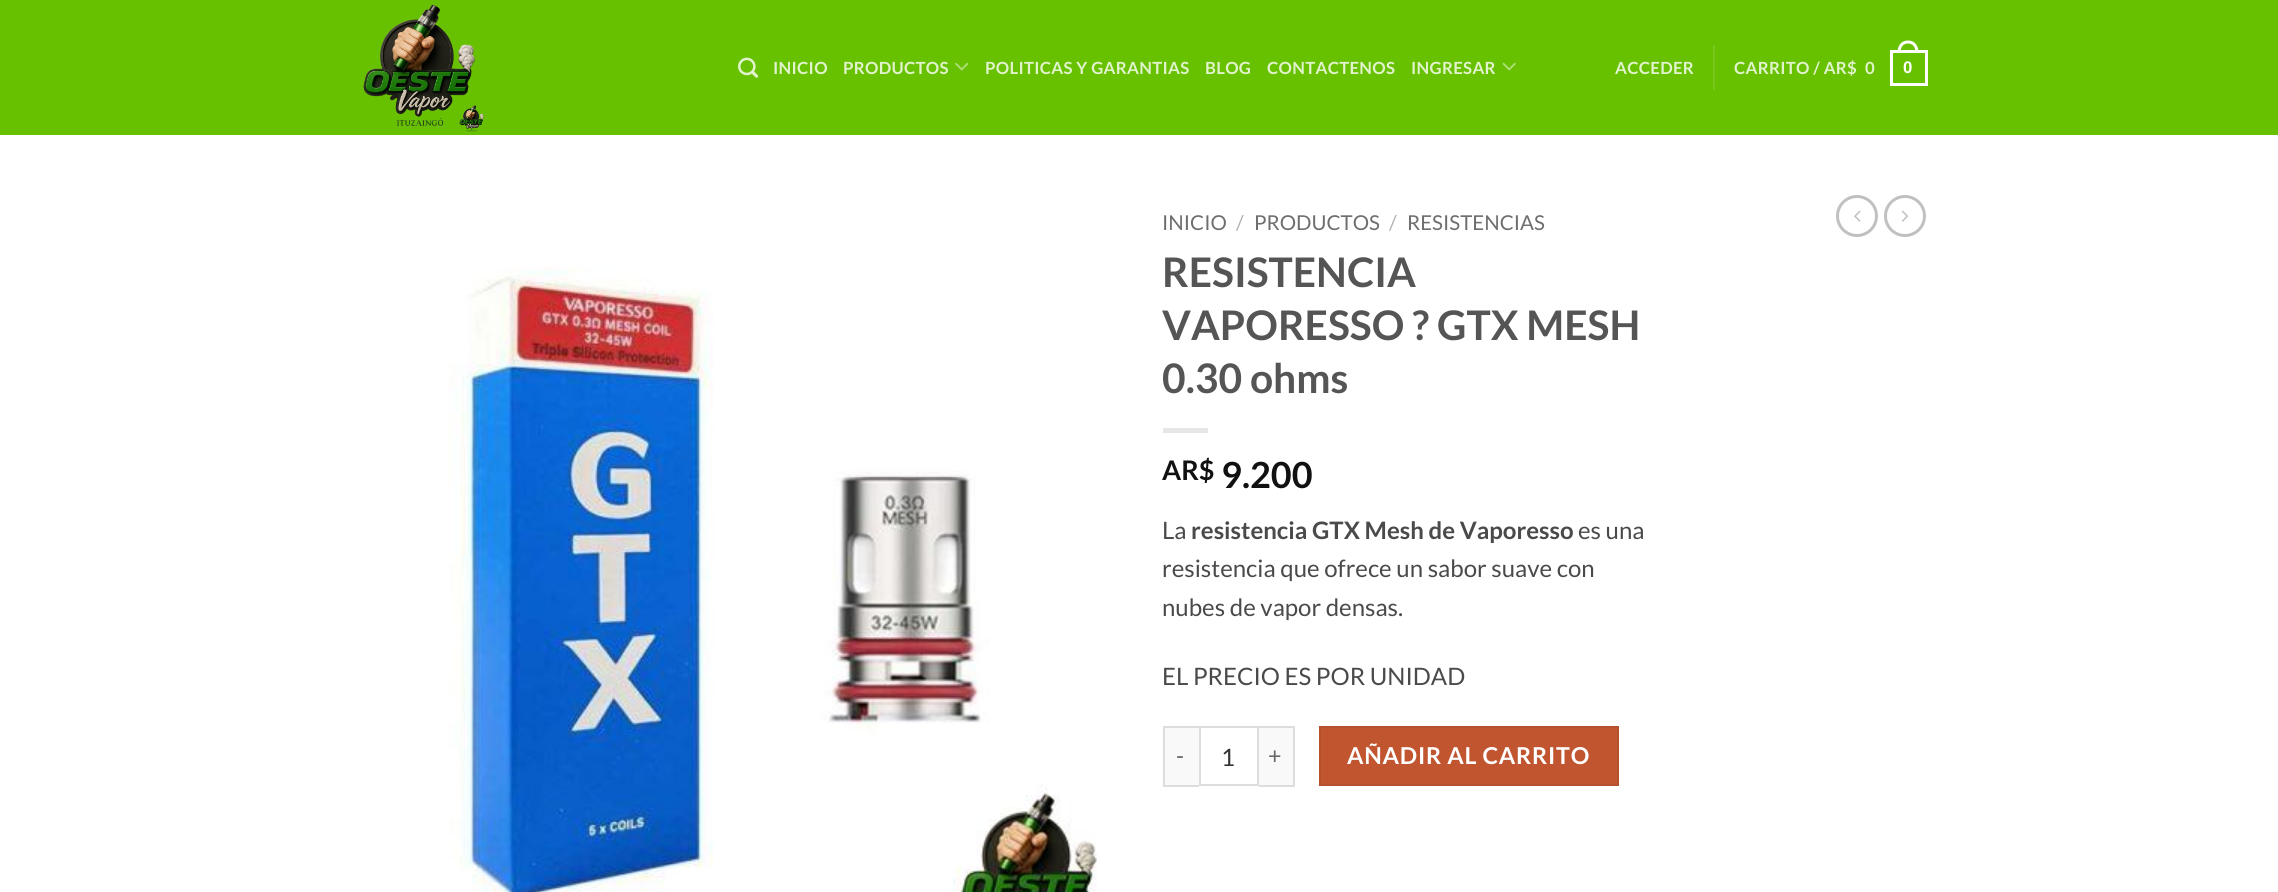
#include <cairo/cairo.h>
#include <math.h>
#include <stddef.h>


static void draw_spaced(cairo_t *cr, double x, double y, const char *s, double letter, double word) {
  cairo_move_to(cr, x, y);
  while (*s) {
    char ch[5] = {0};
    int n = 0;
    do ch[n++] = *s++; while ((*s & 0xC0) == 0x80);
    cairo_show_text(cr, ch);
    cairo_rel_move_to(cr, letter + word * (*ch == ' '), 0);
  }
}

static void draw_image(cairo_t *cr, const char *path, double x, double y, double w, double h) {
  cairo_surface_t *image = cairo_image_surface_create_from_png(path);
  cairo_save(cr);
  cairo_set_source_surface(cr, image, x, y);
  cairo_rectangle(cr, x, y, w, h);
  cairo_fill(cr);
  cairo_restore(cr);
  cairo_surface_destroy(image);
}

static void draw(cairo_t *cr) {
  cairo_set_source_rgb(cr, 1, 1, 1);
  cairo_paint(cr);
  cairo_set_source_rgb(cr, 103 / 255.0, 193 / 255.0, 0);
  cairo_rectangle(cr, 0, 0, 2278, 135);
  cairo_fill(cr);
  draw_image(cr, "images/1.png", 363, 4, 121, 128);
  draw_image(cr, "images/2.png", 738, 57, 21, 21);
  draw_image(cr, "images/3.png", 955, 62, 14, 9);
  draw_image(cr, "images/4.png", 1502, 62, 14, 9);
  cairo_set_source_rgb(cr, 118 / 255.0, 199 / 255.0, 26 / 255.0);
  cairo_rectangle(cr, 1713, 45, 2, 45);
  cairo_fill(cr);
  cairo_rectangle(cr, 1891.5, 51.5, 35, 33);
  cairo_set_source_rgb(cr, 1, 1, 1);
  cairo_set_line_width(cr, 3);
  cairo_stroke(cr);
  cairo_set_fill_rule(cr, CAIRO_FILL_RULE_EVEN_ODD);
  cairo_new_path(cr);
  cairo_move_to(cr, 1908, 40.5);
  cairo_curve_to(cr, 1915, 40.5, 1918.5, 46, 1918.5, 52.5);
  cairo_line_to(cr, 1897.5, 52.5);
  cairo_curve_to(cr, 1897.5, 46, 1901, 40.5, 1908, 40.5);
  cairo_close_path(cr);
  cairo_move_to(cr, 1908, 43.5);
  cairo_curve_to(cr, 1913.5, 43.5, 1915.5, 48, 1915.5, 52.5);
  cairo_line_to(cr, 1900.5, 52.5);
  cairo_curve_to(cr, 1900.5, 48, 1902.5, 43.5, 1908, 43.5);
  cairo_close_path(cr);
  cairo_fill(cr);
  draw_image(cr, "images/5.png", 449, 267, 648, 625);
  cairo_set_source_rgb(cr, 230 / 255.0, 230 / 255.0, 230 / 255.0);
  cairo_rectangle(cr, 1163, 428, 45, 5);
  cairo_fill(cr);
  cairo_set_source_rgb(cr, 249 / 255.0, 249 / 255.0, 249 / 255.0);
  cairo_rectangle(cr, 1165, 728, 34, 57);
  cairo_fill(cr);
  cairo_set_source_rgb(cr, 221 / 255.0, 221 / 255.0, 221 / 255.0);
  cairo_rectangle(cr, 1163, 726, 36, 2);
  cairo_fill(cr);
  cairo_rectangle(cr, 1163, 785, 36, 2);
  cairo_fill(cr);
  cairo_rectangle(cr, 1163, 726, 2, 60);
  cairo_fill(cr);
  cairo_rectangle(cr, 1200, 727, 58, 58);
  cairo_set_line_width(cr, 2);
  cairo_stroke(cr);
  cairo_set_source_rgb(cr, 249 / 255.0, 249 / 255.0, 249 / 255.0);
  cairo_rectangle(cr, 1259, 728, 34, 57);
  cairo_fill(cr);
  cairo_set_source_rgb(cr, 221 / 255.0, 221 / 255.0, 221 / 255.0);
  cairo_rectangle(cr, 1259, 726, 36, 2);
  cairo_fill(cr);
  cairo_rectangle(cr, 1293, 726, 2, 60);
  cairo_fill(cr);
  cairo_rectangle(cr, 1259, 785, 36, 2);
  cairo_fill(cr);
  cairo_set_source_rgb(cr, 192 / 255.0, 85 / 255.0, 48 / 255.0);
  cairo_rectangle(cr, 1320, 727, 298, 58);
  cairo_fill_preserve(cr);
  cairo_set_source_rgb(cr, 182 / 255.0, 81 / 255.0, 46 / 255.0);
  cairo_stroke(cr);
  cairo_arc(cr, 1857, 216, 19.5, 0, 2 * M_PI);
  cairo_set_source_rgb(cr, 192 / 255.0, 192 / 255.0, 192 / 255.0);
  cairo_set_line_width(cr, 3);
  cairo_stroke(cr);
  draw_image(cr, "images/6.png", 1854, 210, 7, 12);
  cairo_arc(cr, 1905, 216, 19.5, 0, 2 * M_PI);
  cairo_stroke(cr);
  draw_image(cr, "images/7.png", 1901, 210, 8, 12);
  cairo_select_font_face(cr, "Lato", CAIRO_FONT_SLANT_NORMAL, CAIRO_FONT_WEIGHT_BOLD);
  cairo_set_font_size(cr, 16.75);
  cairo_set_source_rgb(cr, 225 / 255.0, 243 / 255.0, 204 / 255.0);
  draw_spaced(cr, 773, 74, "INICIO", 0.3, 0);
  draw_spaced(cr, 843, 74, "PRODUCTOS", 0.3, 0);
  draw_spaced(cr, 985, 74, "POLITICAS Y GARANTIAS", 0.3, 0);
  draw_spaced(cr, 1205, 74, "BLOG", 0.3, 0);
  draw_spaced(cr, 1267, 74, "CONTACTENOS", 0.3, 0);
  draw_spaced(cr, 1411, 74, "INGRESAR", 0.3, 0);
  draw_spaced(cr, 1615, 74, "ACCEDER", 0.3, 0);
  draw_spaced(cr, 1734, 74, "CARRITO / AR$", 0.3, 0);
  draw_spaced(cr, 1865, 74, "0", 0.3, 0);
  cairo_select_font_face(cr, "Liberation Sans", CAIRO_FONT_SLANT_NORMAL, CAIRO_FONT_WEIGHT_BOLD);
  cairo_set_source_rgb(cr, 1, 1, 1);
  draw_spaced(cr, 1903, 73, "0", 0.3, 0);
  cairo_select_font_face(cr, "Lato", CAIRO_FONT_SLANT_NORMAL, CAIRO_FONT_WEIGHT_NORMAL);
  cairo_set_font_size(cr, 20.5);
  cairo_set_source_rgb(cr, 110 / 255.0, 110 / 255.0, 110 / 255.0);
  cairo_move_to(cr, 1162, 230);
  cairo_show_text(cr, "INICIO");
  cairo_set_source_rgb(cr, 178 / 255.0, 178 / 255.0, 178 / 255.0);
  cairo_move_to(cr, 1236, 230);
  cairo_show_text(cr, "/");
  cairo_set_source_rgb(cr, 110 / 255.0, 110 / 255.0, 110 / 255.0);
  cairo_move_to(cr, 1254, 230);
  cairo_show_text(cr, "PRODUCTOS");
  cairo_set_source_rgb(cr, 178 / 255.0, 178 / 255.0, 178 / 255.0);
  cairo_move_to(cr, 1389, 230);
  cairo_show_text(cr, "/");
  cairo_set_source_rgb(cr, 110 / 255.0, 110 / 255.0, 110 / 255.0);
  cairo_move_to(cr, 1407, 230);
  cairo_show_text(cr, "RESISTENCIAS");
  cairo_select_font_face(cr, "Lato", CAIRO_FONT_SLANT_NORMAL, CAIRO_FONT_WEIGHT_BOLD);
  cairo_set_font_size(cr, 40.75);
  cairo_set_source_rgb(cr, 85 / 255.0, 85 / 255.0, 85 / 255.0);
  cairo_move_to(cr, 1162, 287);
  cairo_show_text(cr, "RESISTENCIA");
  cairo_move_to(cr, 1162, 340);
  cairo_show_text(cr, "VAPORESSO ? GTX MESH");
  cairo_move_to(cr, 1162, 393);
  cairo_show_text(cr, "0.30 ohms");
  cairo_set_font_size(cr, 27);
  cairo_set_source_rgb(cr, 17 / 255.0, 17 / 255.0, 17 / 255.0);
  cairo_move_to(cr, 1162, 480);
  cairo_show_text(cr, "AR$");
  cairo_set_font_size(cr, 36);
  cairo_move_to(cr, 1221, 488);
  cairo_show_text(cr, "9.200");
  cairo_select_font_face(cr, "Lato", CAIRO_FONT_SLANT_NORMAL, CAIRO_FONT_WEIGHT_NORMAL);
  cairo_set_font_size(cr, 24);
  cairo_set_source_rgb(cr, 74 / 255.0, 74 / 255.0, 74 / 255.0);
  cairo_move_to(cr, 1162, 539);
  cairo_show_text(cr, "La");
  cairo_select_font_face(cr, "Lato", CAIRO_FONT_SLANT_NORMAL, CAIRO_FONT_WEIGHT_BOLD);
  cairo_move_to(cr, 1191, 539);
  cairo_show_text(cr, "resistencia GTX Mesh de Vaporesso");
  cairo_select_font_face(cr, "Lato", CAIRO_FONT_SLANT_NORMAL, CAIRO_FONT_WEIGHT_NORMAL);
  cairo_move_to(cr, 1578, 539);
  cairo_show_text(cr, "es una");
  cairo_move_to(cr, 1162, 577);
  cairo_show_text(cr, "resistencia que ofrece un sabor suave con");
  cairo_move_to(cr, 1162, 616);
  cairo_show_text(cr, "nubes de vapor densas.");
  cairo_move_to(cr, 1162, 685);
  cairo_show_text(cr, "EL PRECIO ES POR UNIDAD");
  cairo_set_font_size(cr, 23.25);
  cairo_set_source_rgb(cr, 102 / 255.0, 102 / 255.0, 102 / 255.0);
  draw_spaced(cr, 1176, 764, "-", 0.75, 0);
  cairo_set_font_size(cr, 24);
  cairo_set_source_rgb(cr, 51 / 255.0, 51 / 255.0, 51 / 255.0);
  cairo_move_to(cr, 1221, 766);
  cairo_show_text(cr, "1");
  cairo_set_font_size(cr, 23.25);
  cairo_set_source_rgb(cr, 102 / 255.0, 102 / 255.0, 102 / 255.0);
  draw_spaced(cr, 1268, 764, "+", 0.75, 0);
  cairo_select_font_face(cr, "Lato", CAIRO_FONT_SLANT_NORMAL, CAIRO_FONT_WEIGHT_BOLD);
  cairo_set_source_rgb(cr, 1, 1, 1);
  draw_spaced(cr, 1347, 764, "AÑADIR AL CARRITO", 0.75, 0);
}

int main(void) {
  cairo_surface_t *surface = cairo_image_surface_create(CAIRO_FORMAT_RGB24, 2278, 892);
  cairo_t *cr = cairo_create(surface);
  cairo_font_options_t *options = cairo_font_options_create();
  cairo_font_options_set_hint_metrics(options, CAIRO_HINT_METRICS_OFF);
  cairo_font_options_set_hint_style(options, CAIRO_HINT_STYLE_NONE);
  cairo_set_font_options(cr, options);
  cairo_set_miter_limit(cr, 4);
  draw(cr);
  cairo_surface_write_to_png(surface, "out.png");
  cairo_font_options_destroy(options);
  cairo_destroy(cr);
  cairo_surface_destroy(surface);
  return 0;
}
